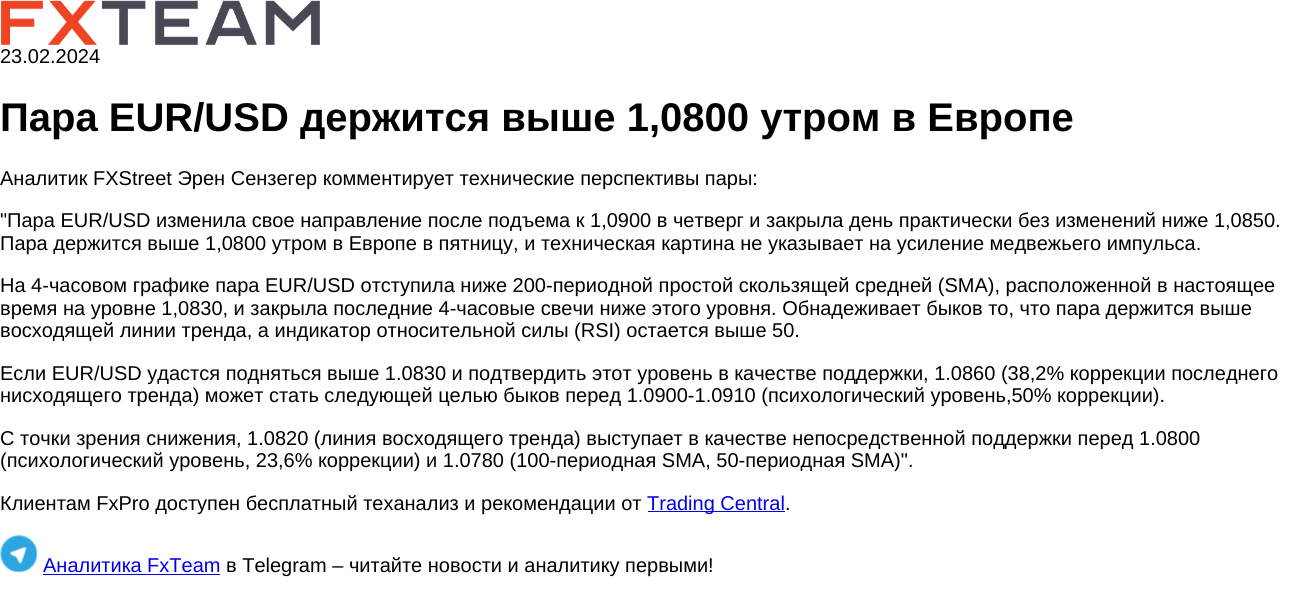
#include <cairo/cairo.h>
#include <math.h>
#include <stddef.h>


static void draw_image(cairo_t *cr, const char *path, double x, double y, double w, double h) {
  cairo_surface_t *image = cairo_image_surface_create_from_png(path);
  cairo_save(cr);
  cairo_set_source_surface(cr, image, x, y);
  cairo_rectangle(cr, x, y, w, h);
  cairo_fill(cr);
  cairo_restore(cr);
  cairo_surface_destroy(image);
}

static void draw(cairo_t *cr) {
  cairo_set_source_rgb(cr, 1, 1, 1);
  cairo_paint(cr);
  draw_image(cr, "images/1.png", 0, 0, 320, 45);
  cairo_set_source_rgb(cr, 0, 0, 238 / 255.0);
  cairo_rectangle(cr, 648, 511, 137, 1);
  cairo_fill(cr);
  draw_image(cr, "images/2.png", 0, 535, 38, 38);
  cairo_rectangle(cr, 43, 574, 177, 1);
  cairo_fill(cr);
  cairo_select_font_face(cr, "Liberation Sans", CAIRO_FONT_SLANT_NORMAL, CAIRO_FONT_WEIGHT_NORMAL);
  cairo_set_font_size(cr, 20);
  cairo_set_source_rgb(cr, 0, 0, 0);
  cairo_move_to(cr, 0, 63);
  cairo_show_text(cr, "23.02.2024");
  cairo_select_font_face(cr, "Liberation Sans", CAIRO_FONT_SLANT_NORMAL, CAIRO_FONT_WEIGHT_BOLD);
  cairo_set_font_size(cr, 40);
  cairo_move_to(cr, 0, 131);
  cairo_show_text(cr, "Пара EUR/USD держится выше 1,0800 утром в Европе");
  cairo_select_font_face(cr, "Liberation Sans", CAIRO_FONT_SLANT_NORMAL, CAIRO_FONT_WEIGHT_NORMAL);
  cairo_set_font_size(cr, 20);
  cairo_move_to(cr, 0, 185);
  cairo_show_text(cr, "Аналитик FXStreet Эрен Сензегер комментирует технические перспективы пары:");
  cairo_move_to(cr, 0, 227);
  cairo_show_text(cr, "\"Пара EUR/USD изменила свое направление после подъема к 1,0900 в четверг и закрыла день практически без изменений ниже 1,0850.");
  cairo_move_to(cr, 0, 250);
  cairo_show_text(cr, "Пара держится выше 1,0800 утром в Европе в пятницу, и техническая картина не указывает на усиление медвежьего импульса.");
  cairo_move_to(cr, 0, 292);
  cairo_show_text(cr, "На 4-часовом графике пара EUR/USD отступила ниже 200-периодной простой скользящей средней (SMA), расположенной в настоящее");
  cairo_move_to(cr, 0, 315);
  cairo_show_text(cr, "время на уровне 1,0830, и закрыла последние 4-часовые свечи ниже этого уровня. Обнадеживает быков то, что пара держится выше");
  cairo_move_to(cr, 0, 337);
  cairo_show_text(cr, "восходящей линии тренда, а индикатор относительной силы (RSI) остается выше 50.");
  cairo_move_to(cr, 0, 380);
  cairo_show_text(cr, "Если EUR/USD удастся подняться выше 1.0830 и подтвердить этот уровень в качестве поддержки, 1.0860 (38,2% коррекции последнего");
  cairo_move_to(cr, 0, 402);
  cairo_show_text(cr, "нисходящего тренда) может стать следующей целью быков перед 1.0900-1.0910 (психологический уровень,50% коррекции).");
  cairo_move_to(cr, 0, 445);
  cairo_show_text(cr, "С точки зрения снижения, 1.0820 (линия восходящего тренда) выступает в качестве непосредственной поддержки перед 1.0800");
  cairo_move_to(cr, 0, 467);
  cairo_show_text(cr, "(психологический уровень, 23,6% коррекции) и 1.0780 (100-периодная SMA, 50-периодная SMA)\".");
  cairo_move_to(cr, 0, 510);
  cairo_show_text(cr, "Клиентам FxPro доступен бесплатный теханализ и рекомендации от");
  cairo_set_source_rgb(cr, 0, 0, 238 / 255.0);
  cairo_move_to(cr, 647, 510);
  cairo_show_text(cr, "Trading Central");
  cairo_set_source_rgb(cr, 0, 0, 0);
  cairo_move_to(cr, 785, 510);
  cairo_show_text(cr, ".");
  cairo_set_source_rgb(cr, 0, 0, 238 / 255.0);
  cairo_move_to(cr, 43, 572);
  cairo_show_text(cr, "Аналитика FxTeam");
  cairo_set_source_rgb(cr, 0, 0, 0);
  cairo_move_to(cr, 226, 572);
  cairo_show_text(cr, "в Telegram – читайте новости и аналитику первыми!");
}

int main(void) {
  cairo_surface_t *surface = cairo_image_surface_create(CAIRO_FORMAT_RGB24, 1294, 612);
  cairo_t *cr = cairo_create(surface);
  cairo_font_options_t *options = cairo_font_options_create();
  cairo_font_options_set_hint_metrics(options, CAIRO_HINT_METRICS_OFF);
  cairo_font_options_set_hint_style(options, CAIRO_HINT_STYLE_NONE);
  cairo_set_font_options(cr, options);
  cairo_set_miter_limit(cr, 4);
  draw(cr);
  cairo_surface_write_to_png(surface, "out.png");
  cairo_font_options_destroy(options);
  cairo_destroy(cr);
  cairo_surface_destroy(surface);
  return 0;
}
